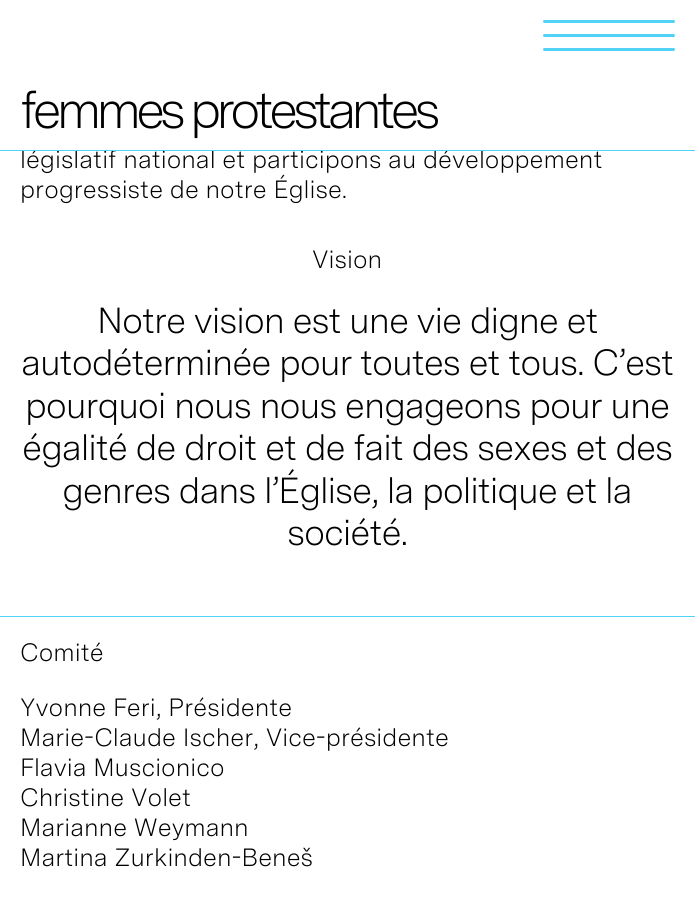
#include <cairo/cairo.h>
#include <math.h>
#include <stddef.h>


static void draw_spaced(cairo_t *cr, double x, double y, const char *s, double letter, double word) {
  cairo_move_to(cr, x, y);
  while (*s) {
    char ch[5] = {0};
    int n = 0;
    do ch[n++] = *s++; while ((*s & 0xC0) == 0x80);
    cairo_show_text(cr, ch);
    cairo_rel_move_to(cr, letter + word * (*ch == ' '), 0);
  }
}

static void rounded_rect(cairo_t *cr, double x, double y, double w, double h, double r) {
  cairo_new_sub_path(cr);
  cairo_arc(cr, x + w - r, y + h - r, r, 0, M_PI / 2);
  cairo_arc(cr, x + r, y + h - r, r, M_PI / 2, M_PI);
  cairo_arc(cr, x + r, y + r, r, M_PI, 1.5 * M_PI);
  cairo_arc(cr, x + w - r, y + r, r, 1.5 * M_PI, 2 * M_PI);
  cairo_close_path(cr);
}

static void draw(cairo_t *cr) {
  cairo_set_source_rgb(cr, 1, 1, 1);
  cairo_paint(cr);
  cairo_set_source_rgb(cr, 82 / 255.0, 210 / 255.0, 246 / 255.0);
  rounded_rect(cr, 543, 20, 132, 3, 1.5);
  cairo_fill(cr);
  rounded_rect(cr, 543, 34, 132, 3, 1.5);
  cairo_fill(cr);
  rounded_rect(cr, 543, 48, 132, 3, 1.5);
  cairo_fill(cr);
  cairo_rectangle(cr, 0, 616, 695, 1);
  cairo_fill(cr);
  cairo_select_font_face(cr, "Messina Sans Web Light", CAIRO_FONT_SLANT_NORMAL, CAIRO_FONT_WEIGHT_NORMAL);
  cairo_set_font_size(cr, 52.5);
  cairo_set_source_rgb(cr, 0, 0, 0);
  draw_spaced(cr, 20, 128, "femmes protestantes", -5.25, 0);
  cairo_set_font_size(cr, 25);
  cairo_move_to(cr, 20, 168);
  cairo_show_text(cr, "législatif national et participons au développement");
  cairo_set_source_rgb(cr, 82 / 255.0, 210 / 255.0, 246 / 255.0);
  cairo_rectangle(cr, 0, 150, 695, 1);
  cairo_fill(cr);
  cairo_set_source_rgb(cr, 1, 1, 1);
  cairo_rectangle(cr, 34, 149, 414, 1);
  cairo_fill(cr);
  cairo_set_source_rgb(cr, 0, 0, 0);
  cairo_move_to(cr, 20, 198);
  cairo_show_text(cr, "progressiste de notre Église.");
  cairo_move_to(cr, 312, 268);
  cairo_show_text(cr, "Vision");
  cairo_set_font_size(cr, 36.25);
  draw_spaced(cr, 97, 333, "Notre vision est une vie digne et", -1.1, 0);
  draw_spaced(cr, 21, 375, "autodéterminée pour toutes et tous. C’est", -1.1, 0);
  draw_spaced(cr, 25, 418, "pourquoi nous nous engageons pour une", -1.1, 0);
  draw_spaced(cr, 22, 460, "égalité de droit et de fait des sexes et des", -1.1, 0);
  draw_spaced(cr, 62, 503, "genres dans l’Église, la politique et la", -1.1, 0);
  draw_spaced(cr, 287, 545, "société.", -1.1, 0);
  cairo_set_font_size(cr, 25);
  cairo_move_to(cr, 20, 661);
  cairo_show_text(cr, "Comité");
  cairo_move_to(cr, 20, 716);
  cairo_show_text(cr, "Yvonne Feri, Présidente");
  cairo_move_to(cr, 20, 746);
  cairo_show_text(cr, "Marie-Claude Ischer, Vice-présidente");
  cairo_move_to(cr, 20, 776);
  cairo_show_text(cr, "Flavia Muscionico");
  cairo_move_to(cr, 20, 806);
  cairo_show_text(cr, "Christine Volet");
  cairo_move_to(cr, 20, 836);
  cairo_show_text(cr, "Marianne Weymann");
  cairo_move_to(cr, 20, 866);
  cairo_show_text(cr, "Martina Zurkinden-Beneš");
}

int main(void) {
  cairo_surface_t *surface = cairo_image_surface_create(CAIRO_FORMAT_RGB24, 695, 901);
  cairo_t *cr = cairo_create(surface);
  cairo_font_options_t *options = cairo_font_options_create();
  cairo_font_options_set_hint_metrics(options, CAIRO_HINT_METRICS_OFF);
  cairo_font_options_set_hint_style(options, CAIRO_HINT_STYLE_NONE);
  cairo_set_font_options(cr, options);
  cairo_set_miter_limit(cr, 4);
  draw(cr);
  cairo_surface_write_to_png(surface, "out.png");
  cairo_font_options_destroy(options);
  cairo_destroy(cr);
  cairo_surface_destroy(surface);
  return 0;
}
